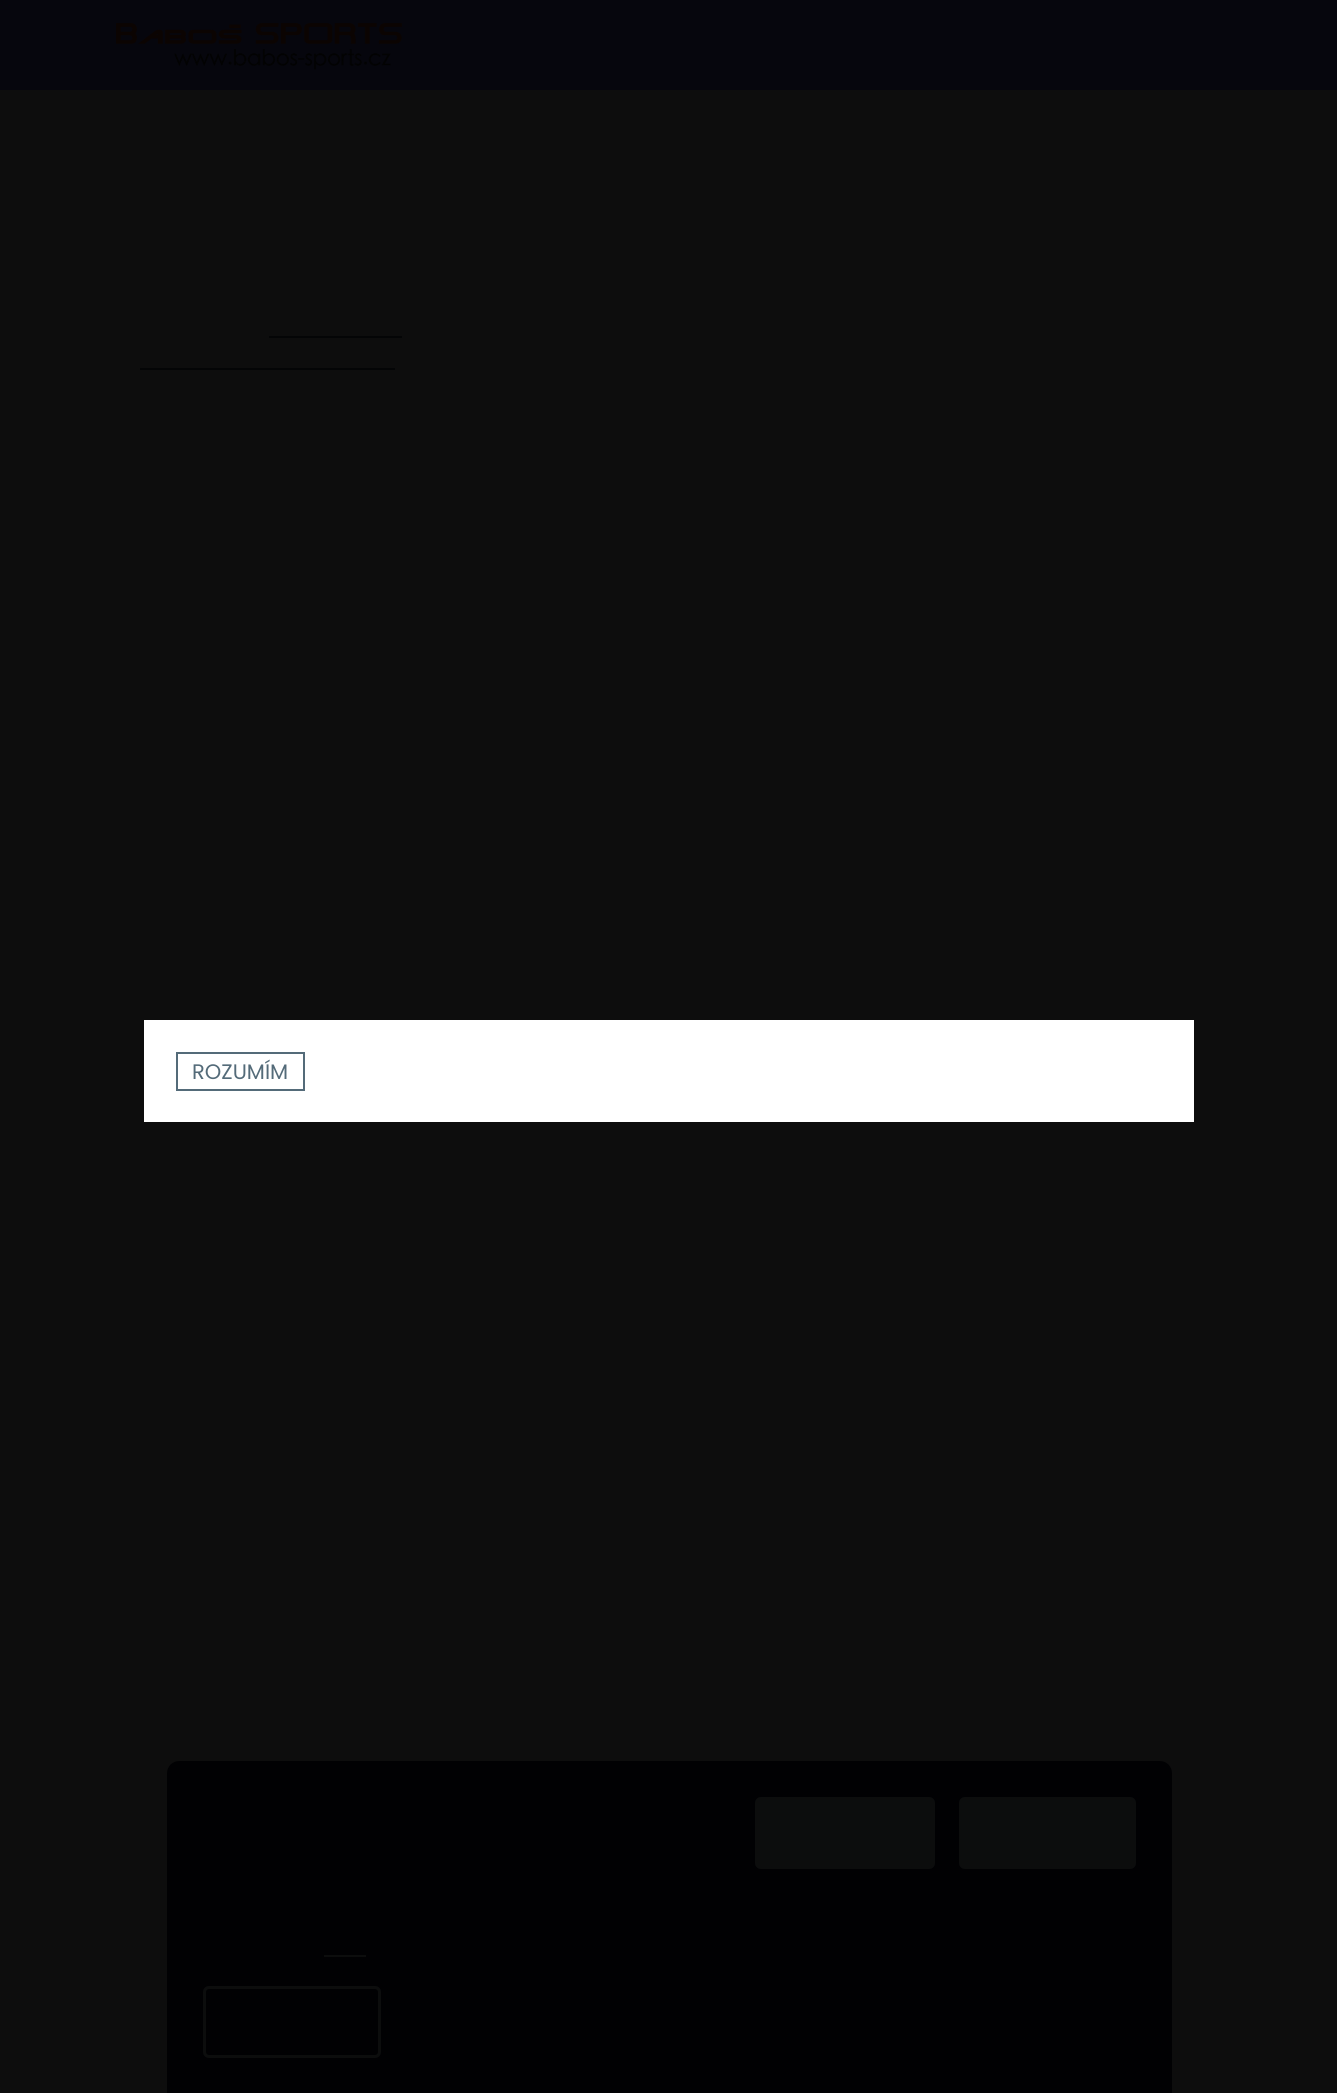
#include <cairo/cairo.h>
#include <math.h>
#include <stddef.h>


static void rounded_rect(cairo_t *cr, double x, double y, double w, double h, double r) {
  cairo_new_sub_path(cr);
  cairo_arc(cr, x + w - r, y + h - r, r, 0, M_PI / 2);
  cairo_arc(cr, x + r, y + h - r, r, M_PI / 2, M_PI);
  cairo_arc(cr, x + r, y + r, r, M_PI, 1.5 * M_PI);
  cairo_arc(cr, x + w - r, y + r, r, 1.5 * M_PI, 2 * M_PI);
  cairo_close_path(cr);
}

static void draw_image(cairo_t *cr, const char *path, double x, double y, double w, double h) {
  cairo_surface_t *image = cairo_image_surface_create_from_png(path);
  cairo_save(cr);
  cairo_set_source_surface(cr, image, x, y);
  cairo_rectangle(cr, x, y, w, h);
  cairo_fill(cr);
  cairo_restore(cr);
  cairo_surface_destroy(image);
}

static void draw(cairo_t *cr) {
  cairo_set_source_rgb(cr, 13 / 255.0, 13 / 255.0, 13 / 255.0);
  cairo_paint(cr);
  cairo_set_source_rgb(cr, 6 / 255.0, 6 / 255.0, 13 / 255.0);
  cairo_rectangle(cr, 0, 0, 1337, 90);
  cairo_fill(cr);
  draw_image(cr, "images/1.png", 115, 23, 287, 47);
  cairo_set_source_rgb(cr, 4 / 255.0, 5 / 255.0, 6 / 255.0);
  cairo_rectangle(cr, 269, 336, 133, 2);
  cairo_fill(cr);
  cairo_rectangle(cr, 140, 368, 255, 2);
  cairo_fill(cr);
  cairo_set_source_rgb(cr, 1, 1, 1);
  cairo_rectangle(cr, 144, 1020, 1050, 102);
  cairo_fill(cr);
  cairo_rectangle(cr, 177, 1053, 127, 37);
  cairo_set_source_rgb(cr, 84 / 255.0, 107 / 255.0, 121 / 255.0);
  cairo_stroke(cr);
  cairo_set_source_rgb(cr, 1 / 255.0, 1 / 255.0, 3 / 255.0);
  cairo_new_path(cr);
  cairo_move_to(cr, 179, 1761);
  cairo_line_to(cr, 1160, 1761);
  cairo_curve_to(cr, 1166.5, 1761, 1172, 1766.5, 1172, 1773);
  cairo_line_to(cr, 1172, 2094);
  cairo_line_to(cr, 167, 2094);
  cairo_line_to(cr, 167, 1773);
  cairo_curve_to(cr, 167, 1766.5, 172.5, 1761, 179, 1761);
  cairo_close_path(cr);
  cairo_fill(cr);
  cairo_set_source_rgb(cr, 12 / 255.0, 13 / 255.0, 13 / 255.0);
  rounded_rect(cr, 755, 1797, 180, 72, 6);
  cairo_fill(cr);
  rounded_rect(cr, 959, 1797, 177, 72, 6);
  cairo_fill(cr);
  cairo_rectangle(cr, 324, 1955, 42, 2);
  cairo_fill(cr);
  rounded_rect(cr, 204.5, 1987.5, 175, 69, 4.5);
  cairo_set_line_width(cr, 3);
  cairo_stroke(cr);
  cairo_select_font_face(cr, "Poppins", CAIRO_FONT_SLANT_NORMAL, CAIRO_FONT_WEIGHT_NORMAL);
  cairo_set_font_size(cr, 21);
  cairo_set_source_rgb(cr, 84 / 255.0, 107 / 255.0, 121 / 255.0);
  cairo_move_to(cr, 192, 1079);
  cairo_show_text(cr, "ROZUMÍM");
}

int main(void) {
  cairo_surface_t *surface = cairo_image_surface_create(CAIRO_FORMAT_RGB24, 1337, 2093);
  cairo_t *cr = cairo_create(surface);
  cairo_font_options_t *options = cairo_font_options_create();
  cairo_font_options_set_hint_metrics(options, CAIRO_HINT_METRICS_OFF);
  cairo_font_options_set_hint_style(options, CAIRO_HINT_STYLE_NONE);
  cairo_set_font_options(cr, options);
  cairo_set_miter_limit(cr, 4);
  draw(cr);
  cairo_surface_write_to_png(surface, "out.png");
  cairo_font_options_destroy(options);
  cairo_destroy(cr);
  cairo_surface_destroy(surface);
  return 0;
}
